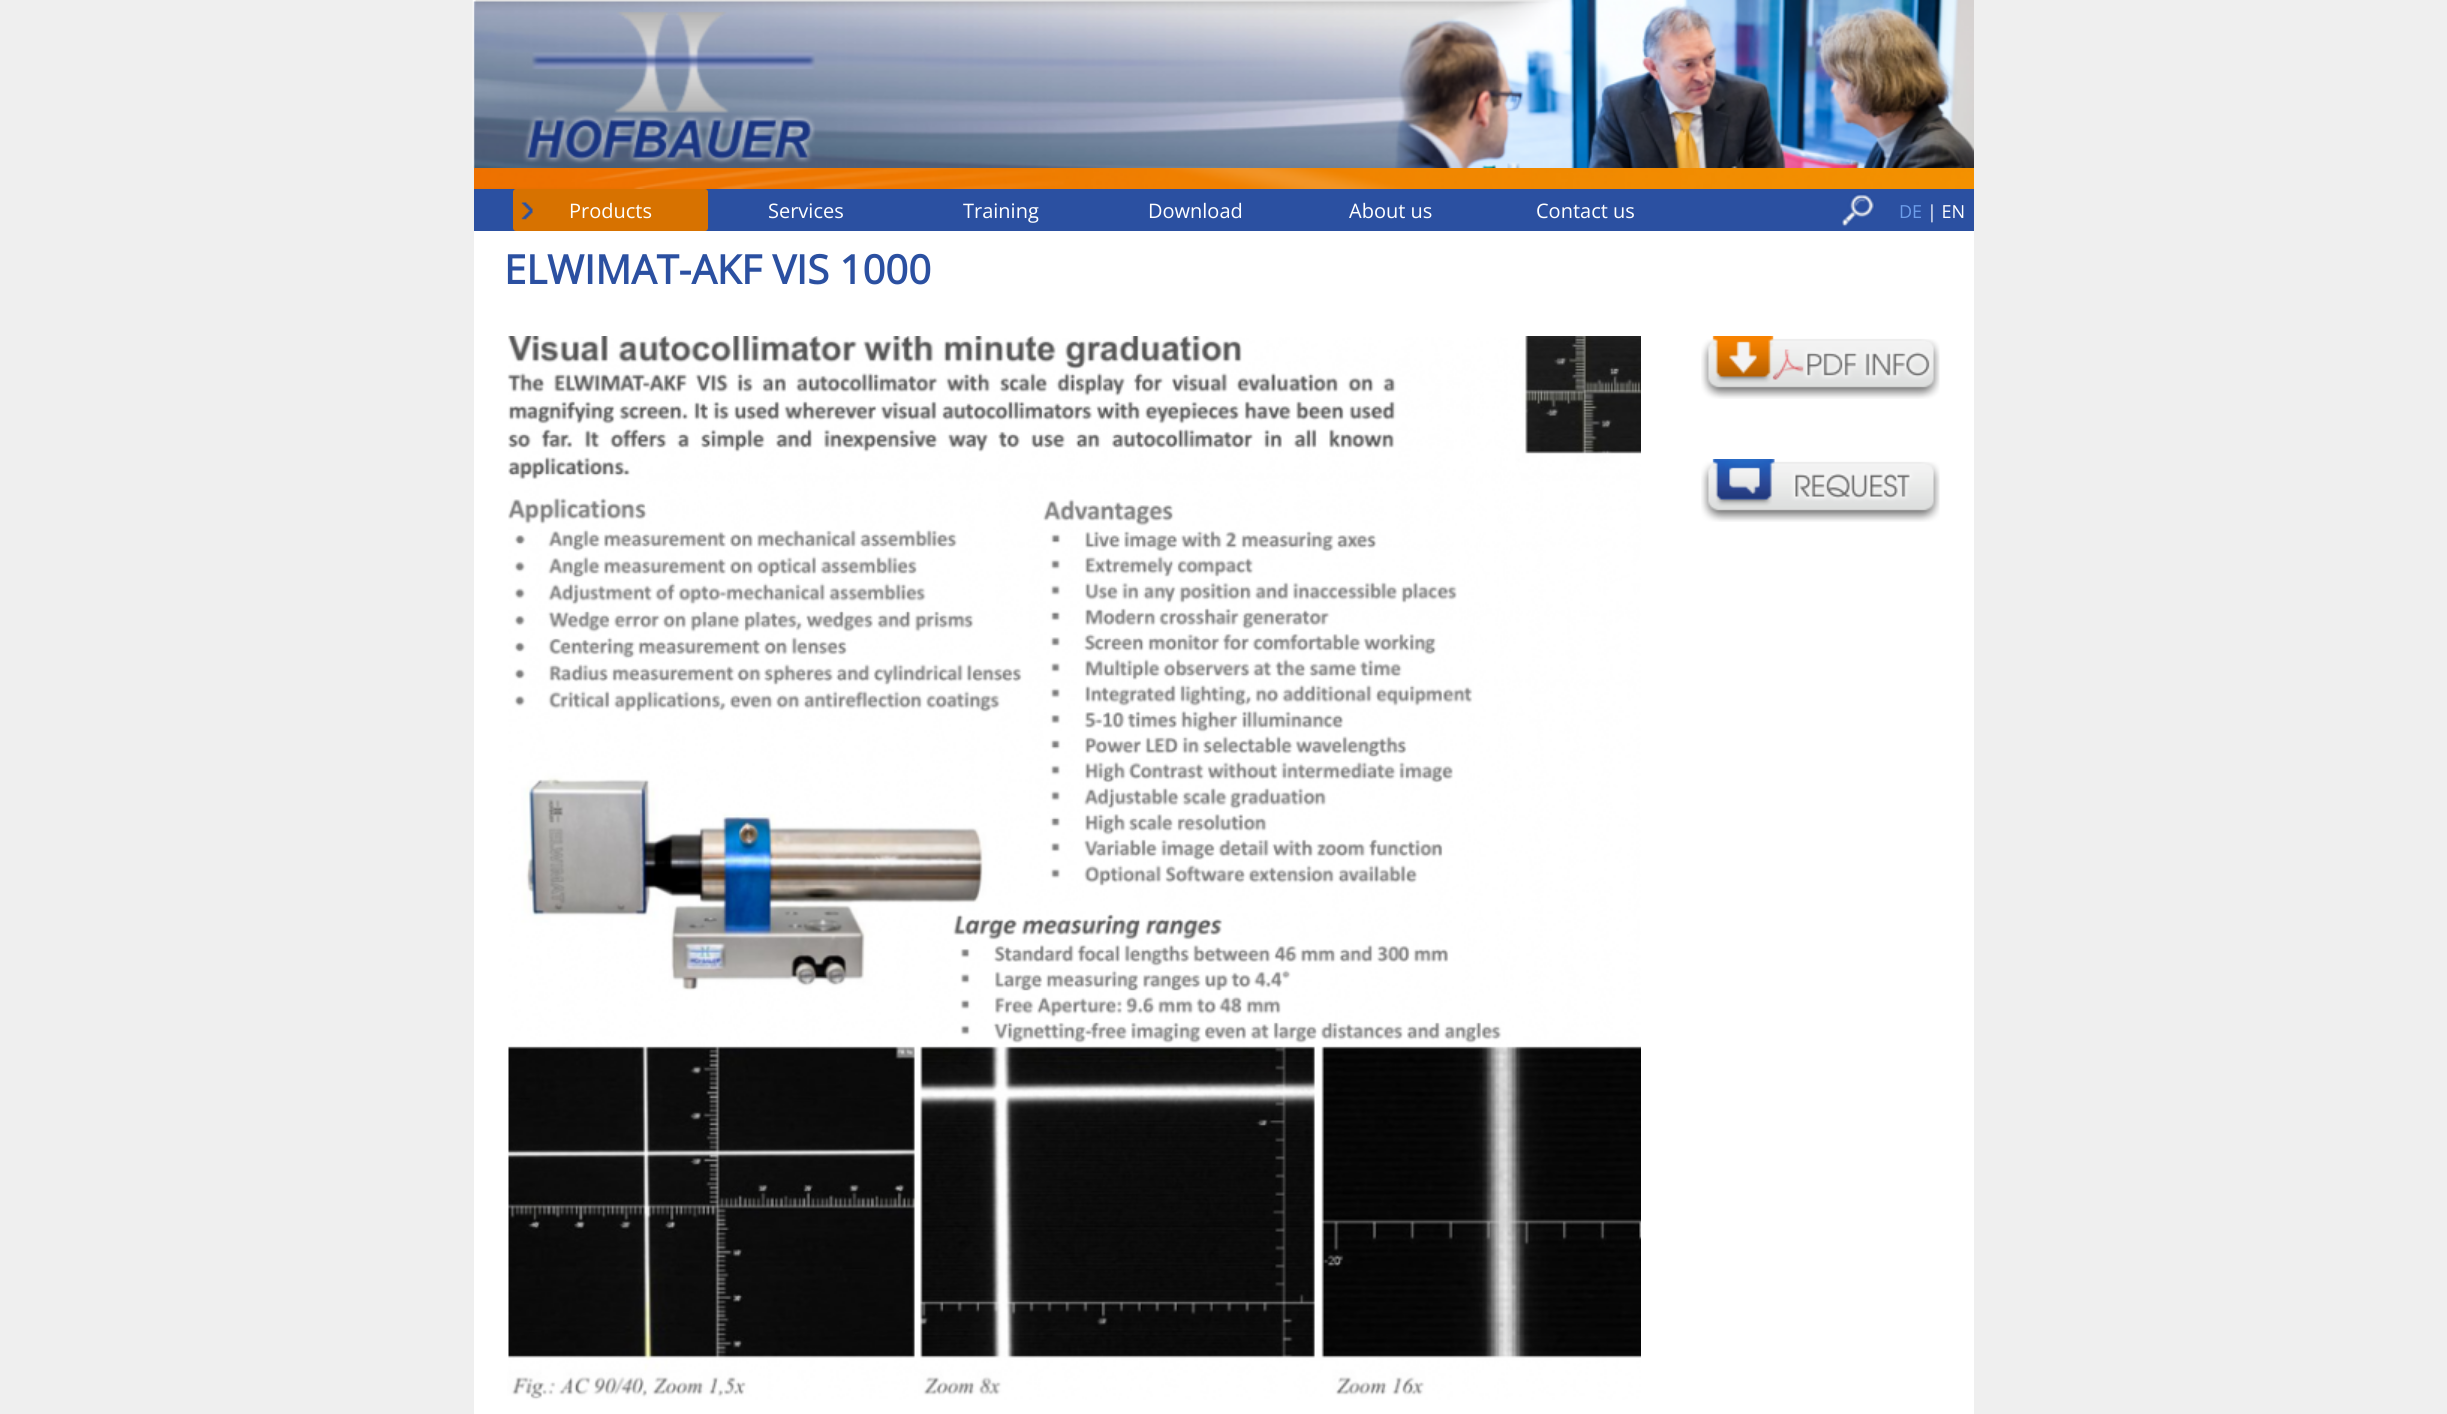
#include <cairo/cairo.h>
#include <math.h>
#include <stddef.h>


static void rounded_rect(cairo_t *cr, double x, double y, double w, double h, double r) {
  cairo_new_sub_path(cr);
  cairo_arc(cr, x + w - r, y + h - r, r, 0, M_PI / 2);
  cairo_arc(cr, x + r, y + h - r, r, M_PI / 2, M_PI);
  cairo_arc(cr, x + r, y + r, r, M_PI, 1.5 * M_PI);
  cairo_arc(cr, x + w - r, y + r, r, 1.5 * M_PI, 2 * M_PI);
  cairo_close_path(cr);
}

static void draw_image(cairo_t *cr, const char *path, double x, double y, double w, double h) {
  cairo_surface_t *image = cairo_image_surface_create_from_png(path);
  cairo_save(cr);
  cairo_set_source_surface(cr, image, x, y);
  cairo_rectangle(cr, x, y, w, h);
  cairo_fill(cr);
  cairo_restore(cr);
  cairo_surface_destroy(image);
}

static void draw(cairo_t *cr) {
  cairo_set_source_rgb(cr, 239 / 255.0, 239 / 255.0, 239 / 255.0);
  cairo_paint(cr);
  cairo_set_source_rgb(cr, 43 / 255.0, 80 / 255.0, 161 / 255.0);
  cairo_rectangle(cr, 474, 189, 1500, 42);
  cairo_fill(cr);
  draw_image(cr, "images/1.png", 472, 0, 1502, 168);
  draw_image(cr, "images/2.png", 474, 168, 1500, 21);
  cairo_set_source_rgb(cr, 215 / 255.0, 114 / 255.0, 0);
  rounded_rect(cr, 513, 189, 195, 42, 3);
  cairo_fill(cr);
  draw_image(cr, "images/3.png", 521, 202, 12, 18);
  draw_image(cr, "images/4.png", 1842, 193, 33, 34);
  cairo_set_source_rgb(cr, 1, 1, 1);
  cairo_rectangle(cr, 474, 231, 1500, 1183);
  cairo_fill(cr);
  draw_image(cr, "images/5.png", 507, 336, 1134, 1064);
  draw_image(cr, "images/6.png", 1701, 336, 239, 63);
  draw_image(cr, "images/7.png", 1701, 459, 239, 63);
  cairo_select_font_face(cr, "Open Sans", CAIRO_FONT_SLANT_NORMAL, CAIRO_FONT_WEIGHT_NORMAL);
  cairo_set_font_size(cr, 20);
  cairo_move_to(cr, 569, 218);
  cairo_show_text(cr, "Products");
  cairo_move_to(cr, 768, 218);
  cairo_show_text(cr, "Services");
  cairo_move_to(cr, 963, 218);
  cairo_show_text(cr, "Training");
  cairo_move_to(cr, 1148, 218);
  cairo_show_text(cr, "Download");
  cairo_move_to(cr, 1349, 218);
  cairo_show_text(cr, "About us");
  cairo_move_to(cr, 1536, 218);
  cairo_show_text(cr, "Contact us");
  cairo_set_font_size(cr, 18);
  cairo_set_source_rgb(cr, 109 / 255.0, 158 / 255.0, 235 / 255.0);
  cairo_move_to(cr, 1899, 218);
  cairo_show_text(cr, "DE");
  cairo_set_source_rgb(cr, 1, 1, 1);
  cairo_move_to(cr, 1927, 218);
  cairo_show_text(cr, "| EN");
  cairo_select_font_face(cr, "Open Sans", CAIRO_FONT_SLANT_NORMAL, CAIRO_FONT_WEIGHT_BOLD);
  cairo_set_font_size(cr, 40);
  cairo_set_source_rgb(cr, 43 / 255.0, 80 / 255.0, 161 / 255.0);
  cairo_move_to(cr, 504, 284);
  cairo_show_text(cr, "ELWIMAT-AKF VIS 1000");
}

int main(void) {
  cairo_surface_t *surface = cairo_image_surface_create(CAIRO_FORMAT_RGB24, 2447, 1414);
  cairo_t *cr = cairo_create(surface);
  cairo_font_options_t *options = cairo_font_options_create();
  cairo_font_options_set_hint_metrics(options, CAIRO_HINT_METRICS_OFF);
  cairo_font_options_set_hint_style(options, CAIRO_HINT_STYLE_NONE);
  cairo_set_font_options(cr, options);
  cairo_set_miter_limit(cr, 4);
  draw(cr);
  cairo_surface_write_to_png(surface, "out.png");
  cairo_font_options_destroy(options);
  cairo_destroy(cr);
  cairo_surface_destroy(surface);
  return 0;
}
